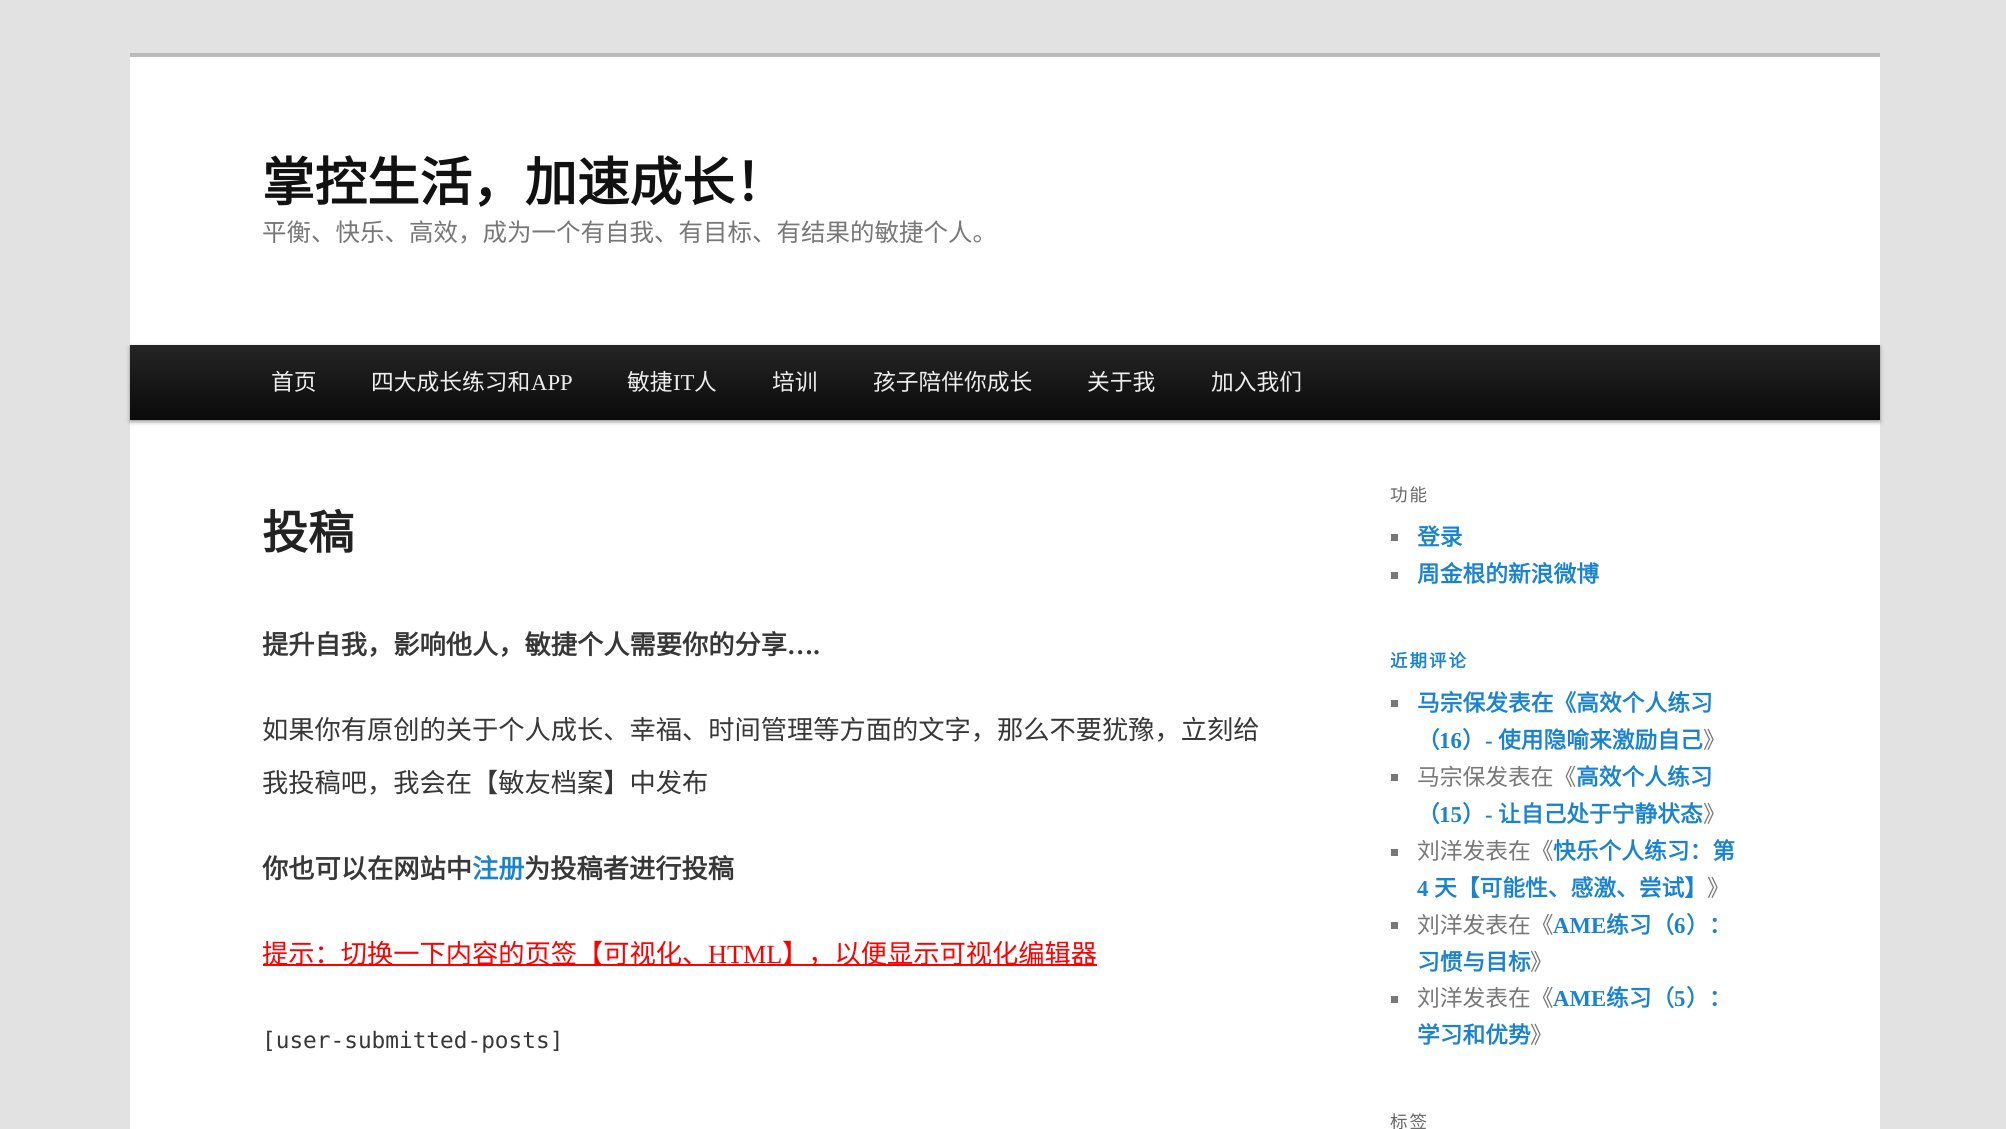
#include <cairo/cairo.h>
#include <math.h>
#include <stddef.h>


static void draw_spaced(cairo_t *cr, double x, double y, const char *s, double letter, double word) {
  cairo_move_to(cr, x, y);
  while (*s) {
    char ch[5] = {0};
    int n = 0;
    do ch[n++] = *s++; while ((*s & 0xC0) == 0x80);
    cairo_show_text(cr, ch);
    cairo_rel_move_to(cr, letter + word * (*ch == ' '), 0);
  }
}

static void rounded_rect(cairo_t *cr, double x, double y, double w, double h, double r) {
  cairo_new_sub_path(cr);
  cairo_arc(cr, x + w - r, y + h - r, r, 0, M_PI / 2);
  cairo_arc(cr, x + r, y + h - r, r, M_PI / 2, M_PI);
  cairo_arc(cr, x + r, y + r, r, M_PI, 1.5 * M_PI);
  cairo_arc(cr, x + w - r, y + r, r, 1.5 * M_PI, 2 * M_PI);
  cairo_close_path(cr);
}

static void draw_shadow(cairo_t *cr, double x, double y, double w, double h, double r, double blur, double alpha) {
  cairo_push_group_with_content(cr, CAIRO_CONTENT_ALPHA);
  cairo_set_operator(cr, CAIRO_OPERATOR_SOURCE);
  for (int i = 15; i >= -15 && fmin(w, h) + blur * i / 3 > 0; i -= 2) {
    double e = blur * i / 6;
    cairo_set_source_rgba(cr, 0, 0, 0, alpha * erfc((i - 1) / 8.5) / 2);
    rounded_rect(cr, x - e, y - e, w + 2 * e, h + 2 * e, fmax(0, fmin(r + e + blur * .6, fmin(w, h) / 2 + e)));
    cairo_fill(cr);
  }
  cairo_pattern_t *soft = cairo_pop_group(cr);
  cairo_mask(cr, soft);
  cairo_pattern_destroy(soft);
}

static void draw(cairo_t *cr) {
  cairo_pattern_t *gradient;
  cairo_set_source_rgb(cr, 226 / 255.0, 226 / 255.0, 226 / 255.0);
  cairo_paint(cr);
  cairo_set_source_rgb(cr, 1, 1, 1);
  cairo_rectangle(cr, 130, 57, 1750, 1072);
  cairo_fill(cr);
  cairo_set_source_rgb(cr, 187 / 255.0, 187 / 255.0, 187 / 255.0);
  cairo_rectangle(cr, 130, 53, 1750, 4);
  cairo_fill(cr);
  cairo_set_source_rgb(cr, 0, 0, 0);
  draw_shadow(cr, 130, 347, 1750, 75, 0, 2, 0.4);
  gradient = cairo_pattern_create_linear(1005, 345, 1005, 420);
  cairo_pattern_add_color_stop_rgba(gradient, 0, 37 / 255.0, 37 / 255.0, 37 / 255.0, 1);
  cairo_pattern_add_color_stop_rgba(gradient, 1, 10 / 255.0, 10 / 255.0, 10 / 255.0, 1);
  cairo_set_source(cr, gradient);
  cairo_pattern_destroy(gradient);
  cairo_rectangle(cr, 130, 345, 1750, 75);
  cairo_fill(cr);
  cairo_set_source_rgb(cr, 1, 0, 0);
  cairo_rectangle(cr, 263, 964, 834, 2);
  cairo_fill(cr);
  cairo_set_source_rgb(cr, 119 / 255.0, 119 / 255.0, 119 / 255.0);
  cairo_rectangle(cr, 1391, 534, 7, 7);
  cairo_fill(cr);
  cairo_rectangle(cr, 1391, 572, 7, 7);
  cairo_fill(cr);
  cairo_rectangle(cr, 1391, 700, 7, 7);
  cairo_fill(cr);
  cairo_rectangle(cr, 1391, 774, 7, 7);
  cairo_fill(cr);
  cairo_rectangle(cr, 1391, 849, 7, 7);
  cairo_fill(cr);
  cairo_rectangle(cr, 1391, 922, 7, 7);
  cairo_fill(cr);
  cairo_rectangle(cr, 1391, 996, 7, 7);
  cairo_fill(cr);
  cairo_select_font_face(cr, "Noto Sans CJK SC", CAIRO_FONT_SLANT_NORMAL, CAIRO_FONT_WEIGHT_BOLD);
  cairo_set_font_size(cr, 52.5);
  cairo_set_source_rgb(cr, 17 / 255.0, 17 / 255.0, 17 / 255.0);
  cairo_move_to(cr, 262, 201);
  cairo_show_text(cr, "掌控生活，加速成长！");
  cairo_select_font_face(cr, "Noto Sans CJK SC", CAIRO_FONT_SLANT_NORMAL, CAIRO_FONT_WEIGHT_NORMAL);
  cairo_set_font_size(cr, 24.5);
  cairo_set_source_rgb(cr, 119 / 255.0, 119 / 255.0, 119 / 255.0);
  cairo_move_to(cr, 262, 241);
  cairo_show_text(cr, "平衡、快乐、高效，成为一个有自我、有目标、有结果的敏捷个人。");
  cairo_set_font_size(cr, 22.75);
  cairo_set_source_rgb(cr, 238 / 255.0, 238 / 255.0, 238 / 255.0);
  cairo_move_to(cr, 271, 390);
  cairo_show_text(cr, "首页");
  cairo_move_to(cr, 371, 390);
  cairo_show_text(cr, "四大成长练习和");
  cairo_select_font_face(cr, "Liberation Serif", CAIRO_FONT_SLANT_NORMAL, CAIRO_FONT_WEIGHT_NORMAL);
  cairo_move_to(cr, 531, 390);
  cairo_show_text(cr, "APP");
  cairo_select_font_face(cr, "Noto Sans CJK SC", CAIRO_FONT_SLANT_NORMAL, CAIRO_FONT_WEIGHT_NORMAL);
  cairo_move_to(cr, 627, 390);
  cairo_show_text(cr, "敏捷");
  cairo_select_font_face(cr, "Liberation Serif", CAIRO_FONT_SLANT_NORMAL, CAIRO_FONT_WEIGHT_NORMAL);
  cairo_move_to(cr, 673, 390);
  cairo_show_text(cr, "IT");
  cairo_select_font_face(cr, "Noto Sans CJK SC", CAIRO_FONT_SLANT_NORMAL, CAIRO_FONT_WEIGHT_NORMAL);
  cairo_move_to(cr, 694, 390);
  cairo_show_text(cr, "人");
  cairo_move_to(cr, 772, 390);
  cairo_show_text(cr, "培训");
  cairo_move_to(cr, 873, 390);
  cairo_show_text(cr, "孩子陪伴你成长");
  cairo_move_to(cr, 1087, 390);
  cairo_show_text(cr, "关于我");
  cairo_move_to(cr, 1211, 390);
  cairo_show_text(cr, "加入我们");
  cairo_select_font_face(cr, "Noto Sans CJK SC", CAIRO_FONT_SLANT_NORMAL, CAIRO_FONT_WEIGHT_BOLD);
  cairo_set_font_size(cr, 46);
  cairo_set_source_rgb(cr, 34 / 255.0, 34 / 255.0, 34 / 255.0);
  cairo_move_to(cr, 262, 549);
  cairo_show_text(cr, "投稿");
  cairo_set_font_size(cr, 26.25);
  cairo_set_source_rgb(cr, 55 / 255.0, 55 / 255.0, 55 / 255.0);
  cairo_move_to(cr, 262, 654);
  cairo_show_text(cr, "提升自我，影响他人，敏捷个人需要你的分享");
  cairo_select_font_face(cr, "Liberation Serif", CAIRO_FONT_SLANT_NORMAL, CAIRO_FONT_WEIGHT_BOLD);
  cairo_move_to(cr, 787, 654);
  cairo_show_text(cr, "….");
  cairo_select_font_face(cr, "Noto Sans CJK SC", CAIRO_FONT_SLANT_NORMAL, CAIRO_FONT_WEIGHT_NORMAL);
  cairo_move_to(cr, 262, 739);
  cairo_show_text(cr, "如果你有原创的关于个人成长、幸福、时间管理等方面的文字，那么不要犹豫，立刻给");
  cairo_move_to(cr, 262, 792);
  cairo_show_text(cr, "我投稿吧，我会在【敏友档案】中发布");
  cairo_select_font_face(cr, "Noto Sans CJK SC", CAIRO_FONT_SLANT_NORMAL, CAIRO_FONT_WEIGHT_BOLD);
  cairo_move_to(cr, 262, 878);
  cairo_show_text(cr, "你也可以在网站中");
  cairo_set_source_rgb(cr, 25 / 255.0, 130 / 255.0, 209 / 255.0);
  cairo_move_to(cr, 472, 878);
  cairo_show_text(cr, "注册");
  cairo_set_source_rgb(cr, 55 / 255.0, 55 / 255.0, 55 / 255.0);
  cairo_move_to(cr, 524, 878);
  cairo_show_text(cr, "为投稿者进行投稿");
  cairo_select_font_face(cr, "Noto Sans CJK SC", CAIRO_FONT_SLANT_NORMAL, CAIRO_FONT_WEIGHT_NORMAL);
  cairo_set_source_rgb(cr, 1, 0, 0);
  cairo_move_to(cr, 262, 963);
  cairo_show_text(cr, "提示：切换一下内容的页签【可视化、");
  cairo_select_font_face(cr, "Liberation Serif", CAIRO_FONT_SLANT_NORMAL, CAIRO_FONT_WEIGHT_NORMAL);
  cairo_move_to(cr, 708, 963);
  cairo_show_text(cr, "HTML");
  cairo_select_font_face(cr, "Noto Sans CJK SC", CAIRO_FONT_SLANT_NORMAL, CAIRO_FONT_WEIGHT_NORMAL);
  cairo_move_to(cr, 782, 963);
  cairo_show_text(cr, "】，以便显示可视化编辑器");
  cairo_select_font_face(cr, "DejaVu Sans Mono", CAIRO_FONT_SLANT_NORMAL, CAIRO_FONT_WEIGHT_NORMAL);
  cairo_set_font_size(cr, 22.75);
  cairo_set_source_rgb(cr, 55 / 255.0, 55 / 255.0, 55 / 255.0);
  cairo_move_to(cr, 262, 1048);
  cairo_show_text(cr, "[user-submitted-posts]");
  cairo_select_font_face(cr, "Noto Sans CJK SC", CAIRO_FONT_SLANT_NORMAL, CAIRO_FONT_WEIGHT_NORMAL);
  cairo_set_font_size(cr, 17.5);
  cairo_set_source_rgb(cr, 102 / 255.0, 102 / 255.0, 102 / 255.0);
  draw_spaced(cr, 1390, 501, "功能", 2, 0);
  cairo_select_font_face(cr, "Noto Sans CJK SC", CAIRO_FONT_SLANT_NORMAL, CAIRO_FONT_WEIGHT_BOLD);
  cairo_set_font_size(cr, 22.75);
  cairo_set_source_rgb(cr, 25 / 255.0, 130 / 255.0, 209 / 255.0);
  cairo_move_to(cr, 1417, 545);
  cairo_show_text(cr, "登录");
  cairo_move_to(cr, 1417, 582);
  cairo_show_text(cr, "周金根的新浪微博");
  cairo_set_font_size(cr, 17.5);
  draw_spaced(cr, 1390, 667, "近期评论", 2, 0);
  cairo_set_font_size(cr, 22.75);
  cairo_move_to(cr, 1417, 711);
  cairo_show_text(cr, "马宗保发表在《高效个人练习");
  cairo_move_to(cr, 1417, 748);
  cairo_show_text(cr, "（");
  cairo_select_font_face(cr, "Liberation Serif", CAIRO_FONT_SLANT_NORMAL, CAIRO_FONT_WEIGHT_BOLD);
  cairo_move_to(cr, 1439, 748);
  cairo_show_text(cr, "16");
  cairo_select_font_face(cr, "Noto Sans CJK SC", CAIRO_FONT_SLANT_NORMAL, CAIRO_FONT_WEIGHT_BOLD);
  cairo_move_to(cr, 1462, 748);
  cairo_show_text(cr, "）");
  cairo_select_font_face(cr, "Liberation Serif", CAIRO_FONT_SLANT_NORMAL, CAIRO_FONT_WEIGHT_BOLD);
  cairo_move_to(cr, 1485, 748);
  cairo_show_text(cr, "-");
  cairo_select_font_face(cr, "Noto Sans CJK SC", CAIRO_FONT_SLANT_NORMAL, CAIRO_FONT_WEIGHT_BOLD);
  cairo_move_to(cr, 1498, 748);
  cairo_show_text(cr, "使用隐喻来激励自己");
  cairo_select_font_face(cr, "Noto Sans CJK SC", CAIRO_FONT_SLANT_NORMAL, CAIRO_FONT_WEIGHT_NORMAL);
  cairo_set_source_rgb(cr, 119 / 255.0, 119 / 255.0, 119 / 255.0);
  cairo_move_to(cr, 1703, 748);
  cairo_show_text(cr, "》");
  cairo_move_to(cr, 1417, 785);
  cairo_show_text(cr, "马宗保发表在《");
  cairo_select_font_face(cr, "Noto Sans CJK SC", CAIRO_FONT_SLANT_NORMAL, CAIRO_FONT_WEIGHT_BOLD);
  cairo_set_source_rgb(cr, 25 / 255.0, 130 / 255.0, 209 / 255.0);
  cairo_move_to(cr, 1576, 785);
  cairo_show_text(cr, "高效个人练习");
  cairo_move_to(cr, 1417, 822);
  cairo_show_text(cr, "（");
  cairo_select_font_face(cr, "Liberation Serif", CAIRO_FONT_SLANT_NORMAL, CAIRO_FONT_WEIGHT_BOLD);
  cairo_move_to(cr, 1439, 822);
  cairo_show_text(cr, "15");
  cairo_select_font_face(cr, "Noto Sans CJK SC", CAIRO_FONT_SLANT_NORMAL, CAIRO_FONT_WEIGHT_BOLD);
  cairo_move_to(cr, 1462, 822);
  cairo_show_text(cr, "）");
  cairo_select_font_face(cr, "Liberation Serif", CAIRO_FONT_SLANT_NORMAL, CAIRO_FONT_WEIGHT_BOLD);
  cairo_move_to(cr, 1485, 822);
  cairo_show_text(cr, "-");
  cairo_select_font_face(cr, "Noto Sans CJK SC", CAIRO_FONT_SLANT_NORMAL, CAIRO_FONT_WEIGHT_BOLD);
  cairo_move_to(cr, 1498, 822);
  cairo_show_text(cr, "让自己处于宁静状态");
  cairo_select_font_face(cr, "Noto Sans CJK SC", CAIRO_FONT_SLANT_NORMAL, CAIRO_FONT_WEIGHT_NORMAL);
  cairo_set_source_rgb(cr, 119 / 255.0, 119 / 255.0, 119 / 255.0);
  cairo_move_to(cr, 1703, 822);
  cairo_show_text(cr, "》");
  cairo_move_to(cr, 1417, 859);
  cairo_show_text(cr, "刘洋发表在《");
  cairo_select_font_face(cr, "Noto Sans CJK SC", CAIRO_FONT_SLANT_NORMAL, CAIRO_FONT_WEIGHT_BOLD);
  cairo_set_source_rgb(cr, 25 / 255.0, 130 / 255.0, 209 / 255.0);
  cairo_move_to(cr, 1553, 859);
  cairo_show_text(cr, "快乐个人练习：第");
  cairo_select_font_face(cr, "Liberation Serif", CAIRO_FONT_SLANT_NORMAL, CAIRO_FONT_WEIGHT_BOLD);
  cairo_move_to(cr, 1417, 896);
  cairo_show_text(cr, "4");
  cairo_select_font_face(cr, "Noto Sans CJK SC", CAIRO_FONT_SLANT_NORMAL, CAIRO_FONT_WEIGHT_BOLD);
  cairo_move_to(cr, 1434, 896);
  cairo_show_text(cr, "天【可能性、感激、尝试】");
  cairo_select_font_face(cr, "Noto Sans CJK SC", CAIRO_FONT_SLANT_NORMAL, CAIRO_FONT_WEIGHT_NORMAL);
  cairo_set_source_rgb(cr, 119 / 255.0, 119 / 255.0, 119 / 255.0);
  cairo_move_to(cr, 1707, 896);
  cairo_show_text(cr, "》");
  cairo_move_to(cr, 1417, 933);
  cairo_show_text(cr, "刘洋发表在《");
  cairo_select_font_face(cr, "Liberation Serif", CAIRO_FONT_SLANT_NORMAL, CAIRO_FONT_WEIGHT_BOLD);
  cairo_set_source_rgb(cr, 25 / 255.0, 130 / 255.0, 209 / 255.0);
  cairo_move_to(cr, 1553, 933);
  cairo_show_text(cr, "AME");
  cairo_select_font_face(cr, "Noto Sans CJK SC", CAIRO_FONT_SLANT_NORMAL, CAIRO_FONT_WEIGHT_BOLD);
  cairo_move_to(cr, 1606, 933);
  cairo_show_text(cr, "练习（");
  cairo_select_font_face(cr, "Liberation Serif", CAIRO_FONT_SLANT_NORMAL, CAIRO_FONT_WEIGHT_BOLD);
  cairo_move_to(cr, 1674, 933);
  cairo_show_text(cr, "6");
  cairo_select_font_face(cr, "Noto Sans CJK SC", CAIRO_FONT_SLANT_NORMAL, CAIRO_FONT_WEIGHT_BOLD);
  cairo_move_to(cr, 1686, 933);
  cairo_show_text(cr, "）：");
  cairo_move_to(cr, 1417, 970);
  cairo_show_text(cr, "习惯与目标");
  cairo_select_font_face(cr, "Noto Sans CJK SC", CAIRO_FONT_SLANT_NORMAL, CAIRO_FONT_WEIGHT_NORMAL);
  cairo_set_source_rgb(cr, 119 / 255.0, 119 / 255.0, 119 / 255.0);
  cairo_move_to(cr, 1530, 970);
  cairo_show_text(cr, "》");
  cairo_move_to(cr, 1417, 1006);
  cairo_show_text(cr, "刘洋发表在《");
  cairo_select_font_face(cr, "Liberation Serif", CAIRO_FONT_SLANT_NORMAL, CAIRO_FONT_WEIGHT_BOLD);
  cairo_set_source_rgb(cr, 25 / 255.0, 130 / 255.0, 209 / 255.0);
  cairo_move_to(cr, 1553, 1006);
  cairo_show_text(cr, "AME");
  cairo_select_font_face(cr, "Noto Sans CJK SC", CAIRO_FONT_SLANT_NORMAL, CAIRO_FONT_WEIGHT_BOLD);
  cairo_move_to(cr, 1606, 1006);
  cairo_show_text(cr, "练习（");
  cairo_select_font_face(cr, "Liberation Serif", CAIRO_FONT_SLANT_NORMAL, CAIRO_FONT_WEIGHT_BOLD);
  cairo_move_to(cr, 1674, 1006);
  cairo_show_text(cr, "5");
  cairo_select_font_face(cr, "Noto Sans CJK SC", CAIRO_FONT_SLANT_NORMAL, CAIRO_FONT_WEIGHT_BOLD);
  cairo_move_to(cr, 1686, 1006);
  cairo_show_text(cr, "）：");
  cairo_move_to(cr, 1417, 1043);
  cairo_show_text(cr, "学习和优势");
  cairo_select_font_face(cr, "Noto Sans CJK SC", CAIRO_FONT_SLANT_NORMAL, CAIRO_FONT_WEIGHT_NORMAL);
  cairo_set_source_rgb(cr, 119 / 255.0, 119 / 255.0, 119 / 255.0);
  cairo_move_to(cr, 1530, 1043);
  cairo_show_text(cr, "》");
  cairo_set_font_size(cr, 17.5);
  cairo_set_source_rgb(cr, 102 / 255.0, 102 / 255.0, 102 / 255.0);
  draw_spaced(cr, 1390, 1128, "标签", 2, 0);
}

int main(void) {
  cairo_surface_t *surface = cairo_image_surface_create(CAIRO_FORMAT_RGB24, 2006, 1129);
  cairo_t *cr = cairo_create(surface);
  cairo_font_options_t *options = cairo_font_options_create();
  cairo_font_options_set_hint_metrics(options, CAIRO_HINT_METRICS_OFF);
  cairo_font_options_set_hint_style(options, CAIRO_HINT_STYLE_NONE);
  cairo_set_font_options(cr, options);
  cairo_set_miter_limit(cr, 4);
  draw(cr);
  cairo_surface_write_to_png(surface, "out.png");
  cairo_font_options_destroy(options);
  cairo_destroy(cr);
  cairo_surface_destroy(surface);
  return 0;
}
